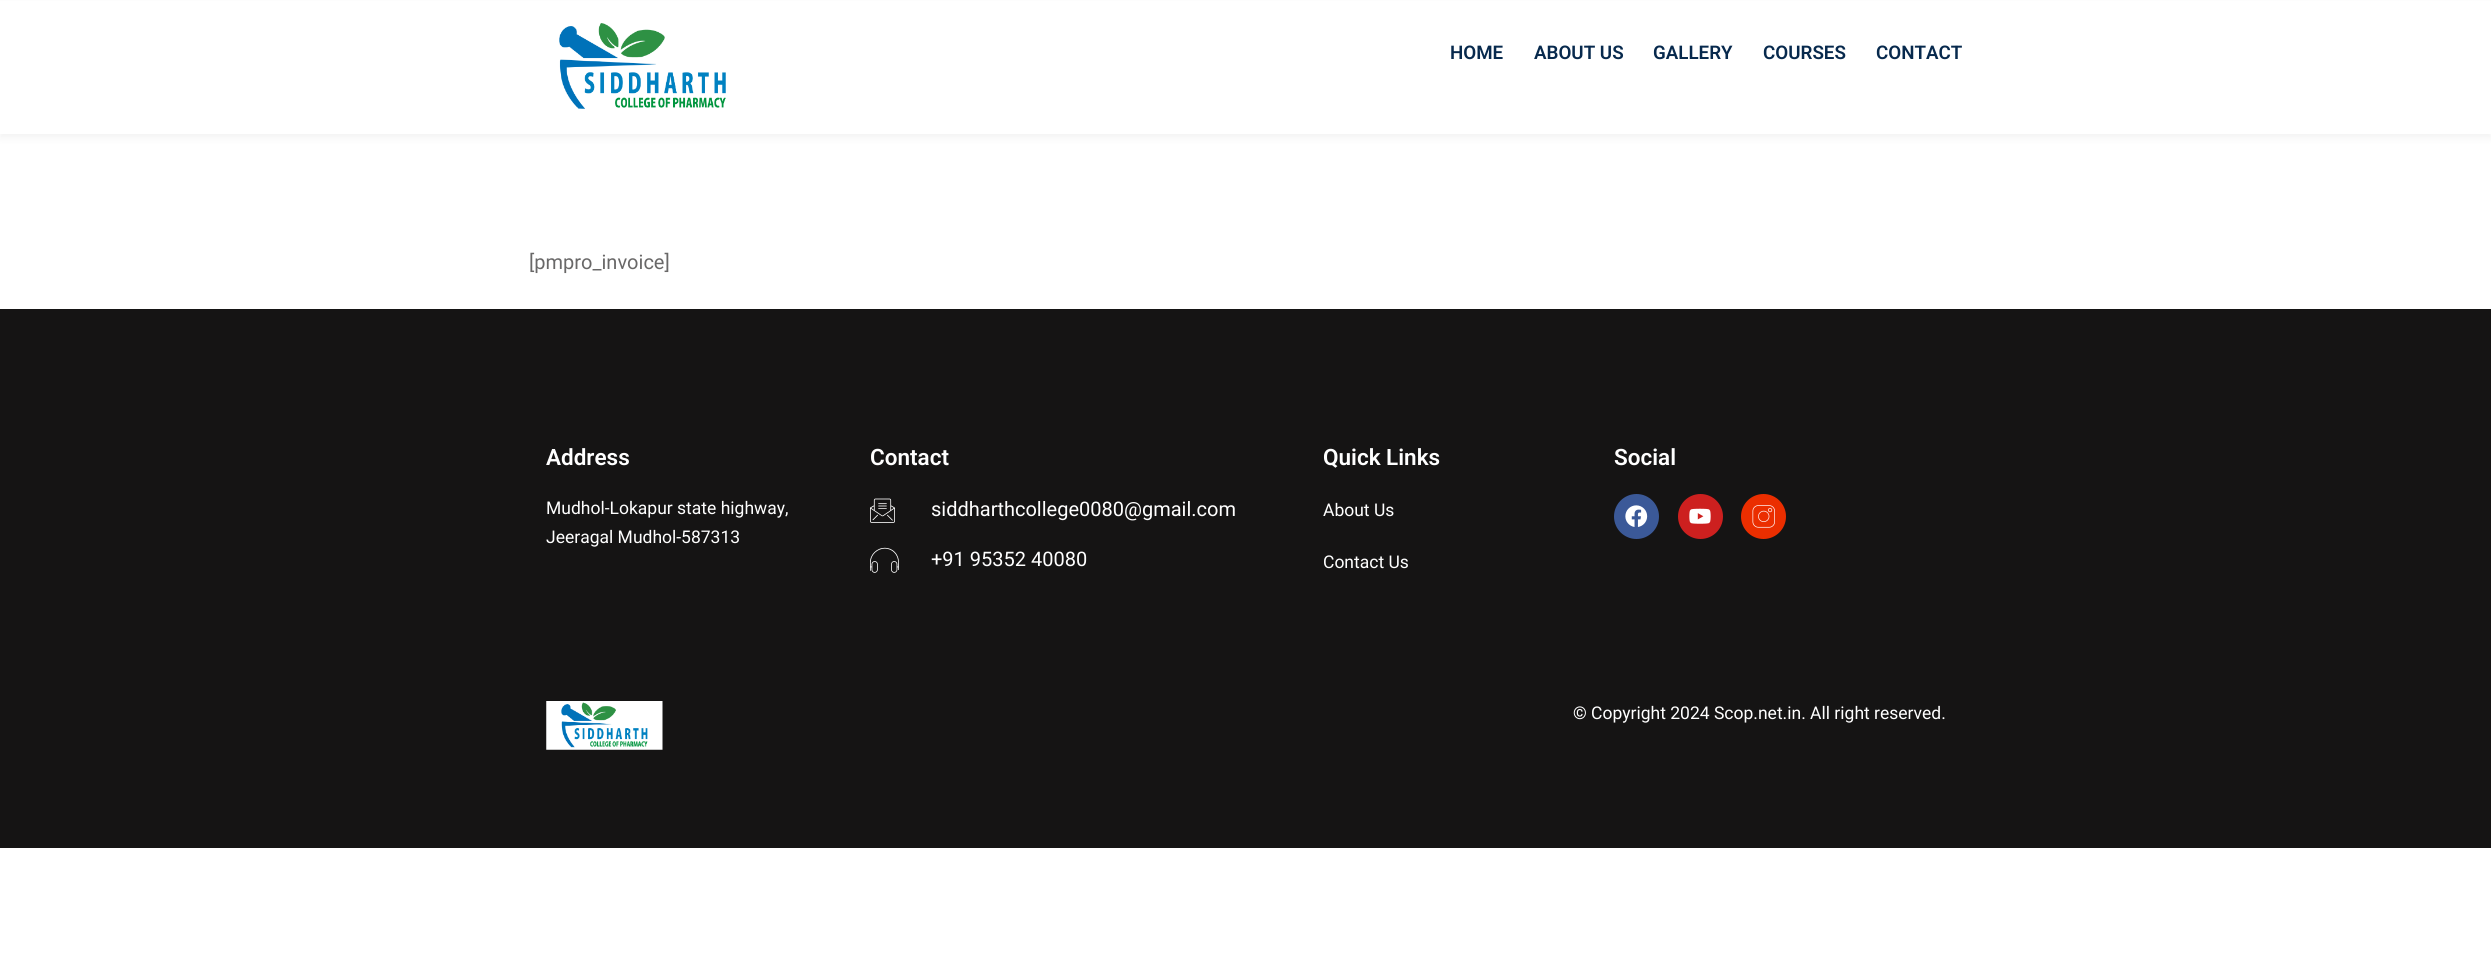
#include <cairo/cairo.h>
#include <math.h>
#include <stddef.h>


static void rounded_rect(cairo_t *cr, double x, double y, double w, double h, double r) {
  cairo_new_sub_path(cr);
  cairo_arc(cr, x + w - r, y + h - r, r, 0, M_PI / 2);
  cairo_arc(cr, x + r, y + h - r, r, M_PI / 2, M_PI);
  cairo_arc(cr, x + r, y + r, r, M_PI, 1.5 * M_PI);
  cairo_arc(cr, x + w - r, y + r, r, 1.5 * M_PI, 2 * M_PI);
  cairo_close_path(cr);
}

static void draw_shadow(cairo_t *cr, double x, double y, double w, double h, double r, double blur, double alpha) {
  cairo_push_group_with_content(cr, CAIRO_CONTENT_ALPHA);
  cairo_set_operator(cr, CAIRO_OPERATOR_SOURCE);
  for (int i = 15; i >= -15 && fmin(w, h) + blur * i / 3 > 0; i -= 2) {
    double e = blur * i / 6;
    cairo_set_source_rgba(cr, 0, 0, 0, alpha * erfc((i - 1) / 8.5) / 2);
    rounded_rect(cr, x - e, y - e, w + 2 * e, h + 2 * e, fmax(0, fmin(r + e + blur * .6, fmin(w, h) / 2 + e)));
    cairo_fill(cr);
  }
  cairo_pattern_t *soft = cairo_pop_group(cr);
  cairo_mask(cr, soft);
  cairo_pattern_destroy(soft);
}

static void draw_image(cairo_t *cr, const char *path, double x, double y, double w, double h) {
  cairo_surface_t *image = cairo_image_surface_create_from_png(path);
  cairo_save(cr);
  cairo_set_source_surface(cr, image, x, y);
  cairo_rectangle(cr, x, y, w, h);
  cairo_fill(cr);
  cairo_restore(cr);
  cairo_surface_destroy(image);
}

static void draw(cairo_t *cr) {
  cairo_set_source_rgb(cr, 1, 1, 1);
  cairo_paint(cr);
  cairo_set_source_rgb(cr, 128 / 255.0, 128 / 255.0, 128 / 255.0);
  draw_shadow(cr, 0, 4, 2491, 134, 0, 4, 0.1);
  cairo_set_source_rgb(cr, 1, 1, 1);
  cairo_rectangle(cr, 0, 1, 2491, 133);
  cairo_fill(cr);
  draw_image(cr, "images/1.png", 559, 23, 167, 86);
  cairo_set_source_rgb(cr, 21 / 255.0, 20 / 255.0, 20 / 255.0);
  cairo_rectangle(cr, 0, 309, 2491, 539);
  cairo_fill(cr);
  draw_image(cr, "images/2.png", 870, 498, 25, 25);
  draw_image(cr, "images/3.png", 870, 547, 29, 26);
  cairo_set_source_rgb(cr, 59 / 255.0, 89 / 255.0, 152 / 255.0);
  cairo_arc(cr, 1636.5, 516.5, 22.5, 0, 2 * M_PI);
  cairo_fill(cr);
  draw_image(cr, "images/4.png", 1625, 505, 23, 22);
  cairo_set_source_rgb(cr, 205 / 255.0, 32 / 255.0, 31 / 255.0);
  cairo_arc(cr, 1700.5, 516.5, 22.5, 0, 2 * M_PI);
  cairo_fill(cr);
  draw_image(cr, "images/5.png", 1689, 508, 22, 16);
  cairo_set_source_rgb(cr, 235 / 255.0, 46 / 255.0, 0);
  cairo_arc(cr, 1763.5, 516.5, 22.5, 0, 2 * M_PI);
  cairo_fill(cr);
  draw_image(cr, "images/6.png", 1752, 505, 23, 23);
  draw_image(cr, "images/7.png", 546, 701, 117, 49);
  cairo_select_font_face(cr, "Roboto SemiBold", CAIRO_FONT_SLANT_NORMAL, CAIRO_FONT_WEIGHT_NORMAL);
  cairo_set_font_size(cr, 18.75);
  cairo_set_source_rgb(cr, 7 / 255.0, 41 / 255.0, 77 / 255.0);
  cairo_move_to(cr, 1450, 59);
  cairo_show_text(cr, "HOME");
  cairo_move_to(cr, 1534, 59);
  cairo_show_text(cr, "ABOUT US");
  cairo_move_to(cr, 1653, 59);
  cairo_show_text(cr, "GALLERY");
  cairo_move_to(cr, 1763, 59);
  cairo_show_text(cr, "COURSES");
  cairo_move_to(cr, 1876, 59);
  cairo_show_text(cr, "CONTACT");
  cairo_select_font_face(cr, "Roboto", CAIRO_FONT_SLANT_NORMAL, CAIRO_FONT_WEIGHT_NORMAL);
  cairo_set_font_size(cr, 20);
  cairo_set_source_rgb(cr, 105 / 255.0, 104 / 255.0, 104 / 255.0);
  cairo_move_to(cr, 529, 269);
  cairo_show_text(cr, "[pmpro_invoice]");
  cairo_select_font_face(cr, "Roboto SemiBold", CAIRO_FONT_SLANT_NORMAL, CAIRO_FONT_WEIGHT_NORMAL);
  cairo_set_font_size(cr, 22.5);
  cairo_set_source_rgb(cr, 1, 1, 1);
  cairo_move_to(cr, 546, 465);
  cairo_show_text(cr, "Address");
  cairo_select_font_face(cr, "Roboto", CAIRO_FONT_SLANT_NORMAL, CAIRO_FONT_WEIGHT_NORMAL);
  cairo_set_font_size(cr, 17.5);
  cairo_move_to(cr, 546, 514);
  cairo_show_text(cr, "Mudhol-Lokapur state highway,");
  cairo_move_to(cr, 546, 543);
  cairo_show_text(cr, "Jeeragal Mudhol-587313");
  cairo_select_font_face(cr, "Roboto SemiBold", CAIRO_FONT_SLANT_NORMAL, CAIRO_FONT_WEIGHT_NORMAL);
  cairo_set_font_size(cr, 22.5);
  cairo_move_to(cr, 870, 465);
  cairo_show_text(cr, "Contact");
  cairo_select_font_face(cr, "Roboto", CAIRO_FONT_SLANT_NORMAL, CAIRO_FONT_WEIGHT_NORMAL);
  cairo_set_font_size(cr, 20);
  cairo_move_to(cr, 931, 516);
  cairo_show_text(cr, "siddharthcollege0080@gmail.com");
  cairo_move_to(cr, 931, 566);
  cairo_show_text(cr, "+91 95352 40080");
  cairo_select_font_face(cr, "Roboto SemiBold", CAIRO_FONT_SLANT_NORMAL, CAIRO_FONT_WEIGHT_NORMAL);
  cairo_set_font_size(cr, 22.5);
  cairo_move_to(cr, 1323, 465);
  cairo_show_text(cr, "Quick Links");
  cairo_select_font_face(cr, "Roboto", CAIRO_FONT_SLANT_NORMAL, CAIRO_FONT_WEIGHT_NORMAL);
  cairo_set_font_size(cr, 17.5);
  cairo_move_to(cr, 1323, 516);
  cairo_show_text(cr, "About Us");
  cairo_move_to(cr, 1323, 568);
  cairo_show_text(cr, "Contact Us");
  cairo_select_font_face(cr, "Roboto SemiBold", CAIRO_FONT_SLANT_NORMAL, CAIRO_FONT_WEIGHT_NORMAL);
  cairo_set_font_size(cr, 22.5);
  cairo_move_to(cr, 1614, 465);
  cairo_show_text(cr, "Social");
  cairo_select_font_face(cr, "Roboto", CAIRO_FONT_SLANT_NORMAL, CAIRO_FONT_WEIGHT_NORMAL);
  cairo_set_font_size(cr, 17.5);
  cairo_move_to(cr, 1573, 719);
  cairo_show_text(cr, "© Copyright 2024 Scop.net.in. All right reserved.");
}

int main(void) {
  cairo_surface_t *surface = cairo_image_surface_create(CAIRO_FORMAT_RGB24, 2491, 959);
  cairo_t *cr = cairo_create(surface);
  cairo_font_options_t *options = cairo_font_options_create();
  cairo_font_options_set_hint_metrics(options, CAIRO_HINT_METRICS_OFF);
  cairo_font_options_set_hint_style(options, CAIRO_HINT_STYLE_NONE);
  cairo_set_font_options(cr, options);
  cairo_set_miter_limit(cr, 4);
  draw(cr);
  cairo_surface_write_to_png(surface, "out.png");
  cairo_font_options_destroy(options);
  cairo_destroy(cr);
  cairo_surface_destroy(surface);
  return 0;
}
